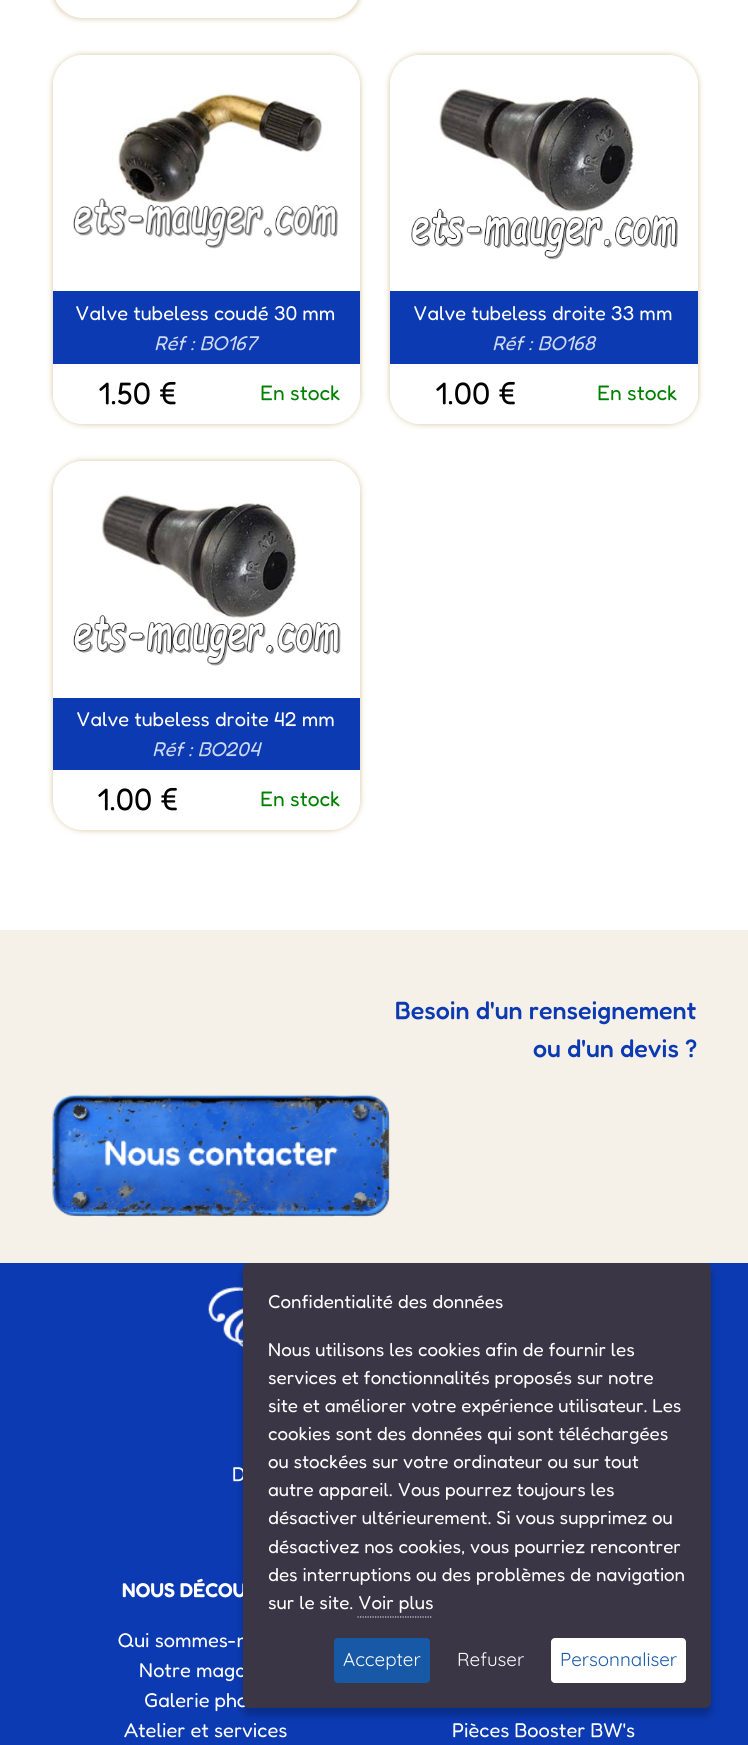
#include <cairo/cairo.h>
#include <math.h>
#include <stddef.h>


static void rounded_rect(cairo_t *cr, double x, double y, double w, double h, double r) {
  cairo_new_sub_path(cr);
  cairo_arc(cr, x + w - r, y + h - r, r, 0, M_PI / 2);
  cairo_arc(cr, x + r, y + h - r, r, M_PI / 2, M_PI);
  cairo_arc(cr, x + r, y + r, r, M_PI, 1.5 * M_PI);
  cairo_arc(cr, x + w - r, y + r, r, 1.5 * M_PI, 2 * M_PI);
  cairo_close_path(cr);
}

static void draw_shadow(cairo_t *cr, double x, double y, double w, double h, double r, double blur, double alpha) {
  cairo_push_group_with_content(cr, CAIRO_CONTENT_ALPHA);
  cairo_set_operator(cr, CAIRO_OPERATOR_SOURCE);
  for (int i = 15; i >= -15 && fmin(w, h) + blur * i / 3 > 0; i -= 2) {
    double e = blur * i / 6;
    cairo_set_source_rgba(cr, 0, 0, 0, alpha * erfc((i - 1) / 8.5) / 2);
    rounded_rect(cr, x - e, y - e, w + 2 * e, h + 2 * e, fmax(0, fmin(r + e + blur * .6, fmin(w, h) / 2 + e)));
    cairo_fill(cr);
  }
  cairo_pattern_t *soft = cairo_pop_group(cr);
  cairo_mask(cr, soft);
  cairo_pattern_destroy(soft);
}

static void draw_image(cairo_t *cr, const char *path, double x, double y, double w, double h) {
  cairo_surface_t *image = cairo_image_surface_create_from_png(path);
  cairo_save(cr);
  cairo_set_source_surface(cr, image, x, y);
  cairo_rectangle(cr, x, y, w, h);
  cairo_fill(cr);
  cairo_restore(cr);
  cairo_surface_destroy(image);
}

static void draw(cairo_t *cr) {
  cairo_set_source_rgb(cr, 1, 1, 1);
  cairo_paint(cr);
  cairo_save(cr);
  cairo_set_fill_rule(cr, CAIRO_FILL_RULE_EVEN_ODD);
  cairo_new_path(cr);
  cairo_move_to(cr, 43, 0);
  cairo_line_to(cr, 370, 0);
  cairo_line_to(cr, 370, 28);
  cairo_line_to(cr, 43, 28);
  cairo_close_path(cr);
  cairo_move_to(cr, 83, -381);
  cairo_line_to(cr, 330, -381);
  cairo_curve_to(cr, 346.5, -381, 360, -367.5, 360, -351);
  cairo_line_to(cr, 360, -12);
  cairo_curve_to(cr, 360, 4.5, 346.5, 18, 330, 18);
  cairo_line_to(cr, 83, 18);
  cairo_curve_to(cr, 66.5, 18, 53, 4.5, 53, -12);
  cairo_line_to(cr, 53, -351);
  cairo_curve_to(cr, 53, -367.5, 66.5, -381, 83, -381);
  cairo_close_path(cr);
  cairo_clip(cr);
  cairo_set_source_rgb(cr, 200 / 255.0, 173 / 255.0, 120 / 255.0);
  draw_shadow(cr, 53, -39, 307, 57, 30, 3, 0.75);
  cairo_restore(cr);
  cairo_save(cr);
  cairo_set_fill_rule(cr, CAIRO_FILL_RULE_EVEN_ODD);
  cairo_new_path(cr);
  cairo_move_to(cr, 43, 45);
  cairo_line_to(cr, 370, 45);
  cairo_line_to(cr, 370, 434);
  cairo_line_to(cr, 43, 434);
  cairo_close_path(cr);
  cairo_move_to(cr, 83, 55);
  cairo_line_to(cr, 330, 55);
  cairo_curve_to(cr, 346.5, 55, 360, 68.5, 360, 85);
  cairo_line_to(cr, 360, 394);
  cairo_curve_to(cr, 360, 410.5, 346.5, 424, 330, 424);
  cairo_line_to(cr, 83, 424);
  cairo_curve_to(cr, 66.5, 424, 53, 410.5, 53, 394);
  cairo_line_to(cr, 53, 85);
  cairo_curve_to(cr, 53, 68.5, 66.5, 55, 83, 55);
  cairo_close_path(cr);
  cairo_clip(cr);
  cairo_set_source_rgb(cr, 200 / 255.0, 173 / 255.0, 120 / 255.0);
  draw_shadow(cr, 53, 55, 307, 369, 30, 3, 0.75);
  cairo_restore(cr);
  draw_image(cr, "images/1.png", 73, 88, 265, 161);
  cairo_set_source_rgb(cr, 11 / 255.0, 58 / 255.0, 178 / 255.0);
  cairo_rectangle(cr, 53, 291, 307, 73);
  cairo_fill(cr);
  cairo_save(cr);
  cairo_set_fill_rule(cr, CAIRO_FILL_RULE_EVEN_ODD);
  cairo_new_path(cr);
  cairo_move_to(cr, 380, 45);
  cairo_line_to(cr, 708, 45);
  cairo_line_to(cr, 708, 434);
  cairo_line_to(cr, 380, 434);
  cairo_close_path(cr);
  cairo_move_to(cr, 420, 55);
  cairo_line_to(cr, 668, 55);
  cairo_curve_to(cr, 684.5, 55, 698, 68.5, 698, 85);
  cairo_line_to(cr, 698, 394);
  cairo_curve_to(cr, 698, 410.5, 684.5, 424, 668, 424);
  cairo_line_to(cr, 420, 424);
  cairo_curve_to(cr, 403.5, 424, 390, 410.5, 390, 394);
  cairo_line_to(cr, 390, 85);
  cairo_curve_to(cr, 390, 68.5, 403.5, 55, 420, 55);
  cairo_close_path(cr);
  cairo_clip(cr);
  cairo_set_source_rgb(cr, 200 / 255.0, 173 / 255.0, 120 / 255.0);
  draw_shadow(cr, 390, 55, 308, 369, 30, 3, 0.75);
  cairo_restore(cr);
  draw_image(cr, "images/2.png", 411, 88, 267, 172);
  cairo_rectangle(cr, 390, 291, 308, 73);
  cairo_fill(cr);
  cairo_save(cr);
  cairo_set_fill_rule(cr, CAIRO_FILL_RULE_EVEN_ODD);
  cairo_new_path(cr);
  cairo_move_to(cr, 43, 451);
  cairo_line_to(cr, 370, 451);
  cairo_line_to(cr, 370, 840);
  cairo_line_to(cr, 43, 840);
  cairo_close_path(cr);
  cairo_move_to(cr, 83, 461);
  cairo_line_to(cr, 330, 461);
  cairo_curve_to(cr, 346.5, 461, 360, 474.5, 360, 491);
  cairo_line_to(cr, 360, 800);
  cairo_curve_to(cr, 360, 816.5, 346.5, 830, 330, 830);
  cairo_line_to(cr, 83, 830);
  cairo_curve_to(cr, 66.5, 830, 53, 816.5, 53, 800);
  cairo_line_to(cr, 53, 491);
  cairo_curve_to(cr, 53, 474.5, 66.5, 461, 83, 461);
  cairo_close_path(cr);
  cairo_clip(cr);
  cairo_set_source_rgb(cr, 200 / 255.0, 173 / 255.0, 120 / 255.0);
  draw_shadow(cr, 53, 461, 307, 369, 30, 3, 0.75);
  cairo_restore(cr);
  draw_image(cr, "images/3.png", 73, 494, 268, 172);
  cairo_rectangle(cr, 53, 698, 307, 72);
  cairo_fill(cr);
  cairo_set_source_rgb(cr, 245 / 255.0, 241 / 255.0, 232 / 255.0);
  cairo_rectangle(cr, 0, 930, 748, 333);
  cairo_fill(cr);
  draw_image(cr, "images/4.png", 52, 1094, 338, 123);
  cairo_set_source_rgb(cr, 11 / 255.0, 58 / 255.0, 178 / 255.0);
  cairo_rectangle(cr, 0, 1263, 748, 482);
  cairo_fill(cr);
  draw_image(cr, "images/5.png", 208, 1286, 35, 62);
  cairo_set_source_rgb(cr, 0, 0, 0);
  draw_shadow(cr, 243, 1270, 468, 445, 6, 4, 0.25);
  cairo_select_font_face(cr, "Fredoka", CAIRO_FONT_SLANT_NORMAL, CAIRO_FONT_WEIGHT_NORMAL);
  cairo_set_font_size(cr, 20);
  cairo_set_source_rgb(cr, 1, 1, 1);
  cairo_move_to(cr, 75, 320);
  cairo_show_text(cr, "Valve tubeless coudé 30 mm");
  cairo_select_font_face(cr, "Fredoka", CAIRO_FONT_SLANT_ITALIC, CAIRO_FONT_WEIGHT_NORMAL);
  cairo_set_source_rgb(cr, 206 / 255.0, 216 / 255.0, 240 / 255.0);
  cairo_move_to(cr, 154, 350);
  cairo_show_text(cr, "Réf : BO167");
  cairo_select_font_face(cr, "Fredoka", CAIRO_FONT_SLANT_NORMAL, CAIRO_FONT_WEIGHT_NORMAL);
  cairo_set_font_size(cr, 31);
  cairo_set_source_rgb(cr, 0, 0, 0);
  cairo_move_to(cr, 98, 404);
  cairo_show_text(cr, "1.50 €");
  cairo_set_font_size(cr, 21);
  cairo_set_source_rgb(cr, 0, 128 / 255.0, 0);
  cairo_move_to(cr, 260, 400);
  cairo_show_text(cr, "En stock");
  cairo_set_font_size(cr, 20);
  cairo_set_source_rgb(cr, 1, 1, 1);
  cairo_move_to(cr, 413, 320);
  cairo_show_text(cr, "Valve tubeless droite 33 mm");
  cairo_select_font_face(cr, "Fredoka", CAIRO_FONT_SLANT_ITALIC, CAIRO_FONT_WEIGHT_NORMAL);
  cairo_set_source_rgb(cr, 206 / 255.0, 216 / 255.0, 240 / 255.0);
  cairo_move_to(cr, 492, 350);
  cairo_show_text(cr, "Réf : BO168");
  cairo_select_font_face(cr, "Fredoka", CAIRO_FONT_SLANT_NORMAL, CAIRO_FONT_WEIGHT_NORMAL);
  cairo_set_font_size(cr, 31);
  cairo_set_source_rgb(cr, 0, 0, 0);
  cairo_move_to(cr, 435, 404);
  cairo_show_text(cr, "1.00 €");
  cairo_set_font_size(cr, 21);
  cairo_set_source_rgb(cr, 0, 128 / 255.0, 0);
  cairo_move_to(cr, 597, 400);
  cairo_show_text(cr, "En stock");
  cairo_set_font_size(cr, 20);
  cairo_set_source_rgb(cr, 1, 1, 1);
  cairo_move_to(cr, 76, 726);
  cairo_show_text(cr, "Valve tubeless droite 42 mm");
  cairo_select_font_face(cr, "Fredoka", CAIRO_FONT_SLANT_ITALIC, CAIRO_FONT_WEIGHT_NORMAL);
  cairo_set_source_rgb(cr, 206 / 255.0, 216 / 255.0, 240 / 255.0);
  cairo_move_to(cr, 152, 756);
  cairo_show_text(cr, "Réf : BO204");
  cairo_select_font_face(cr, "Fredoka", CAIRO_FONT_SLANT_NORMAL, CAIRO_FONT_WEIGHT_NORMAL);
  cairo_set_font_size(cr, 31);
  cairo_set_source_rgb(cr, 0, 0, 0);
  cairo_move_to(cr, 97, 810);
  cairo_show_text(cr, "1.00 €");
  cairo_set_font_size(cr, 21);
  cairo_set_source_rgb(cr, 0, 128 / 255.0, 0);
  cairo_move_to(cr, 260, 806);
  cairo_show_text(cr, "En stock");
  cairo_select_font_face(cr, "Fredoka Medium", CAIRO_FONT_SLANT_NORMAL, CAIRO_FONT_WEIGHT_NORMAL);
  cairo_set_font_size(cr, 25);
  cairo_set_source_rgb(cr, 11 / 255.0, 58 / 255.0, 178 / 255.0);
  cairo_move_to(cr, 395, 1019);
  cairo_show_text(cr, "Besoin d'un renseignement");
  cairo_move_to(cr, 533, 1057);
  cairo_show_text(cr, "ou d'un devis ?");
  cairo_select_font_face(cr, "Fredoka", CAIRO_FONT_SLANT_NORMAL, CAIRO_FONT_WEIGHT_NORMAL);
  cairo_set_font_size(cr, 20);
  cairo_set_source_rgb(cr, 1, 1, 1);
  cairo_move_to(cr, 232, 1481);
  cairo_show_text(cr, "D");
  cairo_select_font_face(cr, "Fredoka SemiBold", CAIRO_FONT_SLANT_NORMAL, CAIRO_FONT_WEIGHT_NORMAL);
  cairo_move_to(cr, 122, 1597);
  cairo_show_text(cr, "NOUS DÉCOU");
  cairo_select_font_face(cr, "Fredoka", CAIRO_FONT_SLANT_NORMAL, CAIRO_FONT_WEIGHT_NORMAL);
  cairo_move_to(cr, 118, 1647);
  cairo_show_text(cr, "Qui sommes-n");
  cairo_move_to(cr, 139, 1677);
  cairo_show_text(cr, "Notre maga");
  cairo_move_to(cr, 144, 1707);
  cairo_show_text(cr, "Galerie pho");
  cairo_set_source_rgb(cr, 59 / 255.0, 54 / 255.0, 70 / 255.0);
  rounded_rect(cr, 243, 1263, 468, 445, 6);
  cairo_fill(cr);
  cairo_set_source_rgb(cr, 1, 1, 1);
  rounded_rect(cr, 551, 1638, 135, 45, 4);
  cairo_fill(cr);
  cairo_select_font_face(cr, "Quicksand", CAIRO_FONT_SLANT_NORMAL, CAIRO_FONT_WEIGHT_NORMAL);
  cairo_set_font_size(cr, 18.75);
  cairo_set_source_rgb(cr, 24 / 255.0, 89 / 255.0, 167 / 255.0);
  cairo_move_to(cr, 560, 1666);
  cairo_show_text(cr, "Personnaliser");
  cairo_set_source_rgb(cr, 1, 1, 1);
  cairo_move_to(cr, 457, 1666);
  cairo_show_text(cr, "Refuser");
  cairo_set_source_rgb(cr, 24 / 255.0, 89 / 255.0, 167 / 255.0);
  rounded_rect(cr, 334, 1638, 96, 45, 4);
  cairo_fill(cr);
  cairo_set_source_rgb(cr, 1, 1, 1);
  cairo_move_to(cr, 343, 1666);
  cairo_show_text(cr, "Accepter");
  cairo_new_path(cr);
  cairo_move_to(cr, 357.5, 1617);
  cairo_line_to(cr, 432.5, 1617);
  cairo_set_source_rgb(cr, 206 / 255.0, 205 / 255.0, 209 / 255.0);
  cairo_set_line_width(cr, 1.2);
  cairo_set_dash(cr, (double[]){1.25, 1.25}, 2, 0);
  cairo_stroke(cr);
  cairo_select_font_face(cr, "Fredoka", CAIRO_FONT_SLANT_NORMAL, CAIRO_FONT_WEIGHT_NORMAL);
  cairo_set_source_rgb(cr, 1, 1, 1);
  cairo_move_to(cr, 268, 1609);
  cairo_show_text(cr, "sur le site. Voir plus");
  cairo_move_to(cr, 268, 1581);
  cairo_show_text(cr, "des interruptions ou des problèmes de navigation");
  cairo_move_to(cr, 268, 1553);
  cairo_show_text(cr, "désactivez nos cookies, vous pourriez rencontrer");
  cairo_move_to(cr, 268, 1524);
  cairo_show_text(cr, "désactiver ultérieurement. Si vous supprimez ou");
  cairo_move_to(cr, 268, 1496);
  cairo_show_text(cr, "autre appareil. Vous pourrez toujours les");
  cairo_move_to(cr, 268, 1468);
  cairo_show_text(cr, "ou stockées sur votre ordinateur ou sur tout");
  cairo_move_to(cr, 268, 1440);
  cairo_show_text(cr, "cookies sont des données qui sont téléchargées");
  cairo_move_to(cr, 268, 1412);
  cairo_show_text(cr, "site et améliorer votre expérience utilisateur. Les");
  cairo_move_to(cr, 268, 1384);
  cairo_show_text(cr, "services et fonctionnalités proposés sur notre");
  cairo_move_to(cr, 268, 1356);
  cairo_show_text(cr, "Nous utilisons les cookies afin de fournir les");
  cairo_move_to(cr, 268, 1308);
  cairo_show_text(cr, "Confidentialité des données");
  cairo_set_font_size(cr, 20);
  cairo_move_to(cr, 124, 1737);
  cairo_show_text(cr, "Atelier et services");
  cairo_move_to(cr, 452, 1737);
  cairo_show_text(cr, "Pièces Booster BW's");
}

int main(void) {
  cairo_surface_t *surface = cairo_image_surface_create(CAIRO_FORMAT_RGB24, 748, 1745);
  cairo_t *cr = cairo_create(surface);
  cairo_font_options_t *options = cairo_font_options_create();
  cairo_font_options_set_hint_metrics(options, CAIRO_HINT_METRICS_OFF);
  cairo_font_options_set_hint_style(options, CAIRO_HINT_STYLE_NONE);
  cairo_set_font_options(cr, options);
  cairo_set_miter_limit(cr, 4);
  draw(cr);
  cairo_surface_write_to_png(surface, "out.png");
  cairo_font_options_destroy(options);
  cairo_destroy(cr);
  cairo_surface_destroy(surface);
  return 0;
}
